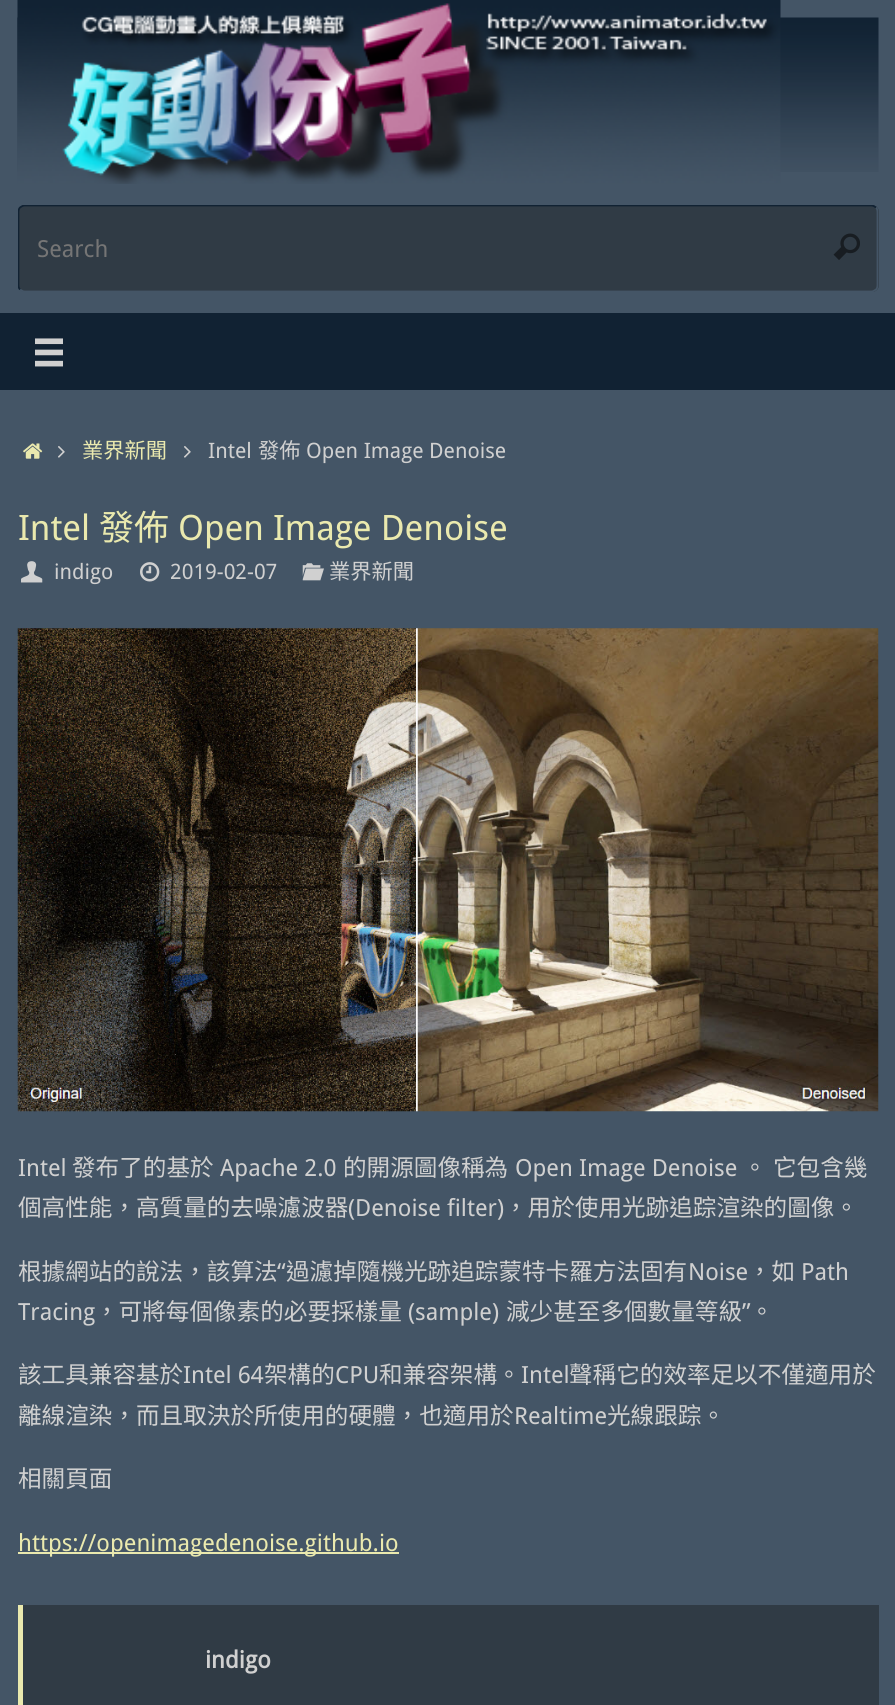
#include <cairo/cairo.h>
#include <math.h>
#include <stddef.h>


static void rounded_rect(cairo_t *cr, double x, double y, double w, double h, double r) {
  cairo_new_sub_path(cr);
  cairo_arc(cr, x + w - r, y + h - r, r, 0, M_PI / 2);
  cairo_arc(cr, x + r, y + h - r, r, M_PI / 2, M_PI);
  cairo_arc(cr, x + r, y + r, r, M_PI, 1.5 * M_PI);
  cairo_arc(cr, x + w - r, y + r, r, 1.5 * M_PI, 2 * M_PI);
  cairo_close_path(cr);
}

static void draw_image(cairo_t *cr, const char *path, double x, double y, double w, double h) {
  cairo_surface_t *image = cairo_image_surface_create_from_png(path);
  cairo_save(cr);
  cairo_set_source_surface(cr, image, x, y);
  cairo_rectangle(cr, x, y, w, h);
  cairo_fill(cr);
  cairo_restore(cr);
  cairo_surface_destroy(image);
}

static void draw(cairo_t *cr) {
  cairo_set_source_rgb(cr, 68 / 255.0, 85 / 255.0, 102 / 255.0);
  cairo_paint(cr);
  draw_image(cr, "images/2.png", 17, 17, 862, 155);
  draw_image(cr, "images/1.png", 17, 0, 764, 184);
  cairo_set_source_rgb(cr, 48 / 255.0, 59 / 255.0, 69 / 255.0);
  rounded_rect(cr, 18, 205, 861, 87, 7);
  cairo_fill(cr);
  cairo_save(cr);
  cairo_rectangle(cr, 18, 205, 861, 87);
  cairo_clip(cr);
  cairo_new_path(cr);
  cairo_move_to(cr, 876, 207.5);
  cairo_curve_to(cr, 877, 208.5, 877.5, 210, 877.5, 212);
  cairo_line_to(cr, 877.5, 285);
  cairo_curve_to(cr, 877.5, 287, 877, 288.5, 876, 289.5);
  cairo_curve_to(cr, 874.5, 290.5, 873, 291.5, 871.5, 291.5);
  cairo_line_to(cr, 24.5, 291.5);
  cairo_curve_to(cr, 23, 291.5, 21.5, 290.5, 20, 289.5);
  cairo_set_source_rgb(cr, 68 / 255.0, 85 / 255.0, 102 / 255.0);
  cairo_set_line_width(cr, 1.8);
  cairo_stroke(cr);
  cairo_new_path(cr);
  cairo_move_to(cr, 20, 289.5);
  cairo_curve_to(cr, 19, 288.5, 18.5, 287, 18.5, 285);
  cairo_line_to(cr, 18.5, 212);
  cairo_curve_to(cr, 18.5, 210, 19, 208.5, 20, 207.5);
  cairo_curve_to(cr, 21.5, 206.5, 23, 205.5, 24.5, 205.5);
  cairo_line_to(cr, 871.5, 205.5);
  cairo_curve_to(cr, 873, 205.5, 874.5, 206.5, 876, 207.5);
  cairo_set_source_rgb(cr, 17 / 255.0, 34 / 255.0, 51 / 255.0);
  cairo_stroke(cr);
  cairo_restore(cr);
  draw_image(cr, "images/3.png", 833, 233, 27, 27);
  cairo_set_source_rgb(cr, 17 / 255.0, 34 / 255.0, 51 / 255.0);
  cairo_rectangle(cr, 0, 313, 895, 77);
  cairo_fill(cr);
  draw_image(cr, "images/4.png", 35, 338, 28, 29);
  draw_image(cr, "images/5.png", 23, 443, 20, 16);
  draw_image(cr, "images/6.png", 58, 446, 7, 12);
  draw_image(cr, "images/6.png", 184, 446, 7, 12);
  draw_image(cr, "images/7.png", 21, 561, 22, 22);
  draw_image(cr, "images/8.png", 140, 562, 20, 20);
  draw_image(cr, "images/9.png", 302, 563, 22, 18);
  draw_image(cr, "images/10.png", 17, 628, 862, 484);
  cairo_set_source_rgb(cr, 234 / 255.0, 233 / 255.0, 174 / 255.0);
  cairo_rectangle(cr, 18, 1552, 381, 2);
  cairo_fill(cr);
  cairo_set_source_rgb(cr, 48 / 255.0, 59 / 255.0, 69 / 255.0);
  cairo_rectangle(cr, 23, 1605, 856, 100);
  cairo_fill(cr);
  cairo_set_source_rgb(cr, 234 / 255.0, 233 / 255.0, 174 / 255.0);
  cairo_rectangle(cr, 18, 1605, 5, 100);
  cairo_fill(cr);
  cairo_select_font_face(cr, "Droid Sans", CAIRO_FONT_SLANT_NORMAL, CAIRO_FONT_WEIGHT_NORMAL);
  cairo_set_font_size(cr, 23.5);
  cairo_set_source_rgb(cr, 117 / 255.0, 117 / 255.0, 117 / 255.0);
  cairo_move_to(cr, 37, 257);
  cairo_show_text(cr, "Search");
  cairo_select_font_face(cr, "Noto Sans CJK TC", CAIRO_FONT_SLANT_NORMAL, CAIRO_FONT_WEIGHT_NORMAL);
  cairo_set_font_size(cr, 21.25);
  cairo_set_source_rgb(cr, 234 / 255.0, 233 / 255.0, 174 / 255.0);
  cairo_move_to(cr, 82, 458);
  cairo_show_text(cr, "業界新聞");
  cairo_select_font_face(cr, "Droid Sans", CAIRO_FONT_SLANT_NORMAL, CAIRO_FONT_WEIGHT_NORMAL);
  cairo_set_source_rgb(cr, 208 / 255.0, 208 / 255.0, 208 / 255.0);
  cairo_move_to(cr, 208, 458);
  cairo_show_text(cr, "Intel");
  cairo_select_font_face(cr, "Noto Sans CJK TC", CAIRO_FONT_SLANT_NORMAL, CAIRO_FONT_WEIGHT_NORMAL);
  cairo_move_to(cr, 258, 458);
  cairo_show_text(cr, "發佈");
  cairo_select_font_face(cr, "Droid Sans", CAIRO_FONT_SLANT_NORMAL, CAIRO_FONT_WEIGHT_NORMAL);
  cairo_move_to(cr, 306, 458);
  cairo_show_text(cr, "Open Image Denoise");
  cairo_set_font_size(cr, 35);
  cairo_set_source_rgb(cr, 234 / 255.0, 233 / 255.0, 174 / 255.0);
  cairo_move_to(cr, 18, 540);
  cairo_show_text(cr, "Intel");
  cairo_select_font_face(cr, "Noto Sans CJK TC", CAIRO_FONT_SLANT_NORMAL, CAIRO_FONT_WEIGHT_NORMAL);
  cairo_move_to(cr, 99, 540);
  cairo_show_text(cr, "發佈");
  cairo_select_font_face(cr, "Droid Sans", CAIRO_FONT_SLANT_NORMAL, CAIRO_FONT_WEIGHT_NORMAL);
  cairo_move_to(cr, 178, 540);
  cairo_show_text(cr, "Open Image Denoise");
  cairo_set_font_size(cr, 21.25);
  cairo_set_source_rgb(cr, 208 / 255.0, 208 / 255.0, 208 / 255.0);
  cairo_move_to(cr, 54, 579);
  cairo_show_text(cr, "indigo");
  cairo_move_to(cr, 170, 579);
  cairo_show_text(cr, "2019-02-07");
  cairo_select_font_face(cr, "Noto Sans CJK TC", CAIRO_FONT_SLANT_NORMAL, CAIRO_FONT_WEIGHT_NORMAL);
  cairo_move_to(cr, 329, 579);
  cairo_show_text(cr, "業界新聞");
  cairo_select_font_face(cr, "Droid Sans", CAIRO_FONT_SLANT_NORMAL, CAIRO_FONT_WEIGHT_NORMAL);
  cairo_set_font_size(cr, 23.6);
  cairo_move_to(cr, 18, 1176);
  cairo_show_text(cr, "Intel");
  cairo_select_font_face(cr, "Noto Sans CJK TC", CAIRO_FONT_SLANT_NORMAL, CAIRO_FONT_WEIGHT_NORMAL);
  cairo_move_to(cr, 72, 1176);
  cairo_show_text(cr, "發布了的基於");
  cairo_select_font_face(cr, "Droid Sans", CAIRO_FONT_SLANT_NORMAL, CAIRO_FONT_WEIGHT_NORMAL);
  cairo_move_to(cr, 220, 1176);
  cairo_show_text(cr, "Apache 2.0");
  cairo_select_font_face(cr, "Noto Sans CJK TC", CAIRO_FONT_SLANT_NORMAL, CAIRO_FONT_WEIGHT_NORMAL);
  cairo_move_to(cr, 343, 1176);
  cairo_show_text(cr, "的開源圖像稱為");
  cairo_select_font_face(cr, "Droid Sans", CAIRO_FONT_SLANT_NORMAL, CAIRO_FONT_WEIGHT_NORMAL);
  cairo_move_to(cr, 515, 1176);
  cairo_show_text(cr, "Open Image Denoise");
  cairo_select_font_face(cr, "Noto Sans CJK TC", CAIRO_FONT_SLANT_NORMAL, CAIRO_FONT_WEIGHT_NORMAL);
  cairo_move_to(cr, 743, 1176);
  cairo_show_text(cr, "。");
  cairo_move_to(cr, 773, 1176);
  cairo_show_text(cr, "它包含幾");
  cairo_move_to(cr, 18, 1216);
  cairo_show_text(cr, "個高性能，高質量的去噪濾波器");
  cairo_select_font_face(cr, "Droid Sans", CAIRO_FONT_SLANT_NORMAL, CAIRO_FONT_WEIGHT_NORMAL);
  cairo_move_to(cr, 348, 1216);
  cairo_show_text(cr, "(Denoise filter)");
  cairo_select_font_face(cr, "Noto Sans CJK TC", CAIRO_FONT_SLANT_NORMAL, CAIRO_FONT_WEIGHT_NORMAL);
  cairo_move_to(cr, 504, 1216);
  cairo_show_text(cr, "，用於使用光跡追踪渲染的圖像。");
  cairo_move_to(cr, 18, 1280);
  cairo_show_text(cr, "根據網站的說法，該算法");
  cairo_select_font_face(cr, "Droid Sans", CAIRO_FONT_SLANT_NORMAL, CAIRO_FONT_WEIGHT_NORMAL);
  cairo_move_to(cr, 277, 1280);
  cairo_show_text(cr, "“");
  cairo_select_font_face(cr, "Noto Sans CJK TC", CAIRO_FONT_SLANT_NORMAL, CAIRO_FONT_WEIGHT_NORMAL);
  cairo_move_to(cr, 286, 1280);
  cairo_show_text(cr, "過濾掉隨機光跡追踪蒙特卡羅方法固有");
  cairo_select_font_face(cr, "Droid Sans", CAIRO_FONT_SLANT_NORMAL, CAIRO_FONT_WEIGHT_NORMAL);
  cairo_move_to(cr, 688, 1280);
  cairo_show_text(cr, "Noise");
  cairo_select_font_face(cr, "Noto Sans CJK TC", CAIRO_FONT_SLANT_NORMAL, CAIRO_FONT_WEIGHT_NORMAL);
  cairo_move_to(cr, 748, 1280);
  cairo_show_text(cr, "，如");
  cairo_select_font_face(cr, "Droid Sans", CAIRO_FONT_SLANT_NORMAL, CAIRO_FONT_WEIGHT_NORMAL);
  cairo_move_to(cr, 801, 1280);
  cairo_show_text(cr, "Path");
  cairo_move_to(cr, 18, 1320);
  cairo_show_text(cr, "Tracing");
  cairo_select_font_face(cr, "Noto Sans CJK TC", CAIRO_FONT_SLANT_NORMAL, CAIRO_FONT_WEIGHT_NORMAL);
  cairo_move_to(cr, 95, 1320);
  cairo_show_text(cr, "，可將每個像素的必要採樣量");
  cairo_select_font_face(cr, "Droid Sans", CAIRO_FONT_SLANT_NORMAL, CAIRO_FONT_WEIGHT_NORMAL);
  cairo_move_to(cr, 408, 1320);
  cairo_show_text(cr, "(sample)");
  cairo_select_font_face(cr, "Noto Sans CJK TC", CAIRO_FONT_SLANT_NORMAL, CAIRO_FONT_WEIGHT_NORMAL);
  cairo_move_to(cr, 506, 1320);
  cairo_show_text(cr, "減少甚至多個數量等級");
  cairo_select_font_face(cr, "Droid Sans", CAIRO_FONT_SLANT_NORMAL, CAIRO_FONT_WEIGHT_NORMAL);
  cairo_move_to(cr, 742, 1320);
  cairo_show_text(cr, "”");
  cairo_select_font_face(cr, "Noto Sans CJK TC", CAIRO_FONT_SLANT_NORMAL, CAIRO_FONT_WEIGHT_NORMAL);
  cairo_move_to(cr, 750, 1320);
  cairo_show_text(cr, "。");
  cairo_move_to(cr, 18, 1383);
  cairo_show_text(cr, "該工具兼容基於");
  cairo_select_font_face(cr, "Droid Sans", CAIRO_FONT_SLANT_NORMAL, CAIRO_FONT_WEIGHT_NORMAL);
  cairo_move_to(cr, 183, 1383);
  cairo_show_text(cr, "Intel 64");
  cairo_select_font_face(cr, "Noto Sans CJK TC", CAIRO_FONT_SLANT_NORMAL, CAIRO_FONT_WEIGHT_NORMAL);
  cairo_move_to(cr, 264, 1383);
  cairo_show_text(cr, "架構的");
  cairo_select_font_face(cr, "Droid Sans", CAIRO_FONT_SLANT_NORMAL, CAIRO_FONT_WEIGHT_NORMAL);
  cairo_move_to(cr, 335, 1383);
  cairo_show_text(cr, "CPU");
  cairo_select_font_face(cr, "Noto Sans CJK TC", CAIRO_FONT_SLANT_NORMAL, CAIRO_FONT_WEIGHT_NORMAL);
  cairo_move_to(cr, 379, 1383);
  cairo_show_text(cr, "和兼容架構。");
  cairo_select_font_face(cr, "Droid Sans", CAIRO_FONT_SLANT_NORMAL, CAIRO_FONT_WEIGHT_NORMAL);
  cairo_move_to(cr, 521, 1383);
  cairo_show_text(cr, "Intel");
  cairo_select_font_face(cr, "Noto Sans CJK TC", CAIRO_FONT_SLANT_NORMAL, CAIRO_FONT_WEIGHT_NORMAL);
  cairo_move_to(cr, 569, 1383);
  cairo_show_text(cr, "聲稱它的效率足以不僅適用於");
  cairo_move_to(cr, 18, 1424);
  cairo_show_text(cr, "離線渲染，而且取決於所使用的硬體，也適用於");
  cairo_select_font_face(cr, "Droid Sans", CAIRO_FONT_SLANT_NORMAL, CAIRO_FONT_WEIGHT_NORMAL);
  cairo_move_to(cr, 514, 1424);
  cairo_show_text(cr, "Realtime");
  cairo_select_font_face(cr, "Noto Sans CJK TC", CAIRO_FONT_SLANT_NORMAL, CAIRO_FONT_WEIGHT_NORMAL);
  cairo_move_to(cr, 607, 1424);
  cairo_show_text(cr, "光線跟踪。");
  cairo_move_to(cr, 18, 1487);
  cairo_show_text(cr, "相關頁面");
  cairo_select_font_face(cr, "Droid Sans", CAIRO_FONT_SLANT_NORMAL, CAIRO_FONT_WEIGHT_NORMAL);
  cairo_set_source_rgb(cr, 234 / 255.0, 233 / 255.0, 174 / 255.0);
  cairo_move_to(cr, 18, 1551);
  cairo_show_text(cr, "https://openimagedenoise.github.io");
  cairo_select_font_face(cr, "Droid Sans", CAIRO_FONT_SLANT_NORMAL, CAIRO_FONT_WEIGHT_BOLD);
  cairo_set_source_rgb(cr, 208 / 255.0, 208 / 255.0, 208 / 255.0);
  cairo_move_to(cr, 205, 1668);
  cairo_show_text(cr, "indigo");
}

int main(void) {
  cairo_surface_t *surface = cairo_image_surface_create(CAIRO_FORMAT_RGB24, 895, 1705);
  cairo_t *cr = cairo_create(surface);
  cairo_font_options_t *options = cairo_font_options_create();
  cairo_font_options_set_hint_metrics(options, CAIRO_HINT_METRICS_OFF);
  cairo_font_options_set_hint_style(options, CAIRO_HINT_STYLE_NONE);
  cairo_set_font_options(cr, options);
  cairo_set_miter_limit(cr, 4);
  draw(cr);
  cairo_surface_write_to_png(surface, "out.png");
  cairo_font_options_destroy(options);
  cairo_destroy(cr);
  cairo_surface_destroy(surface);
  return 0;
}
